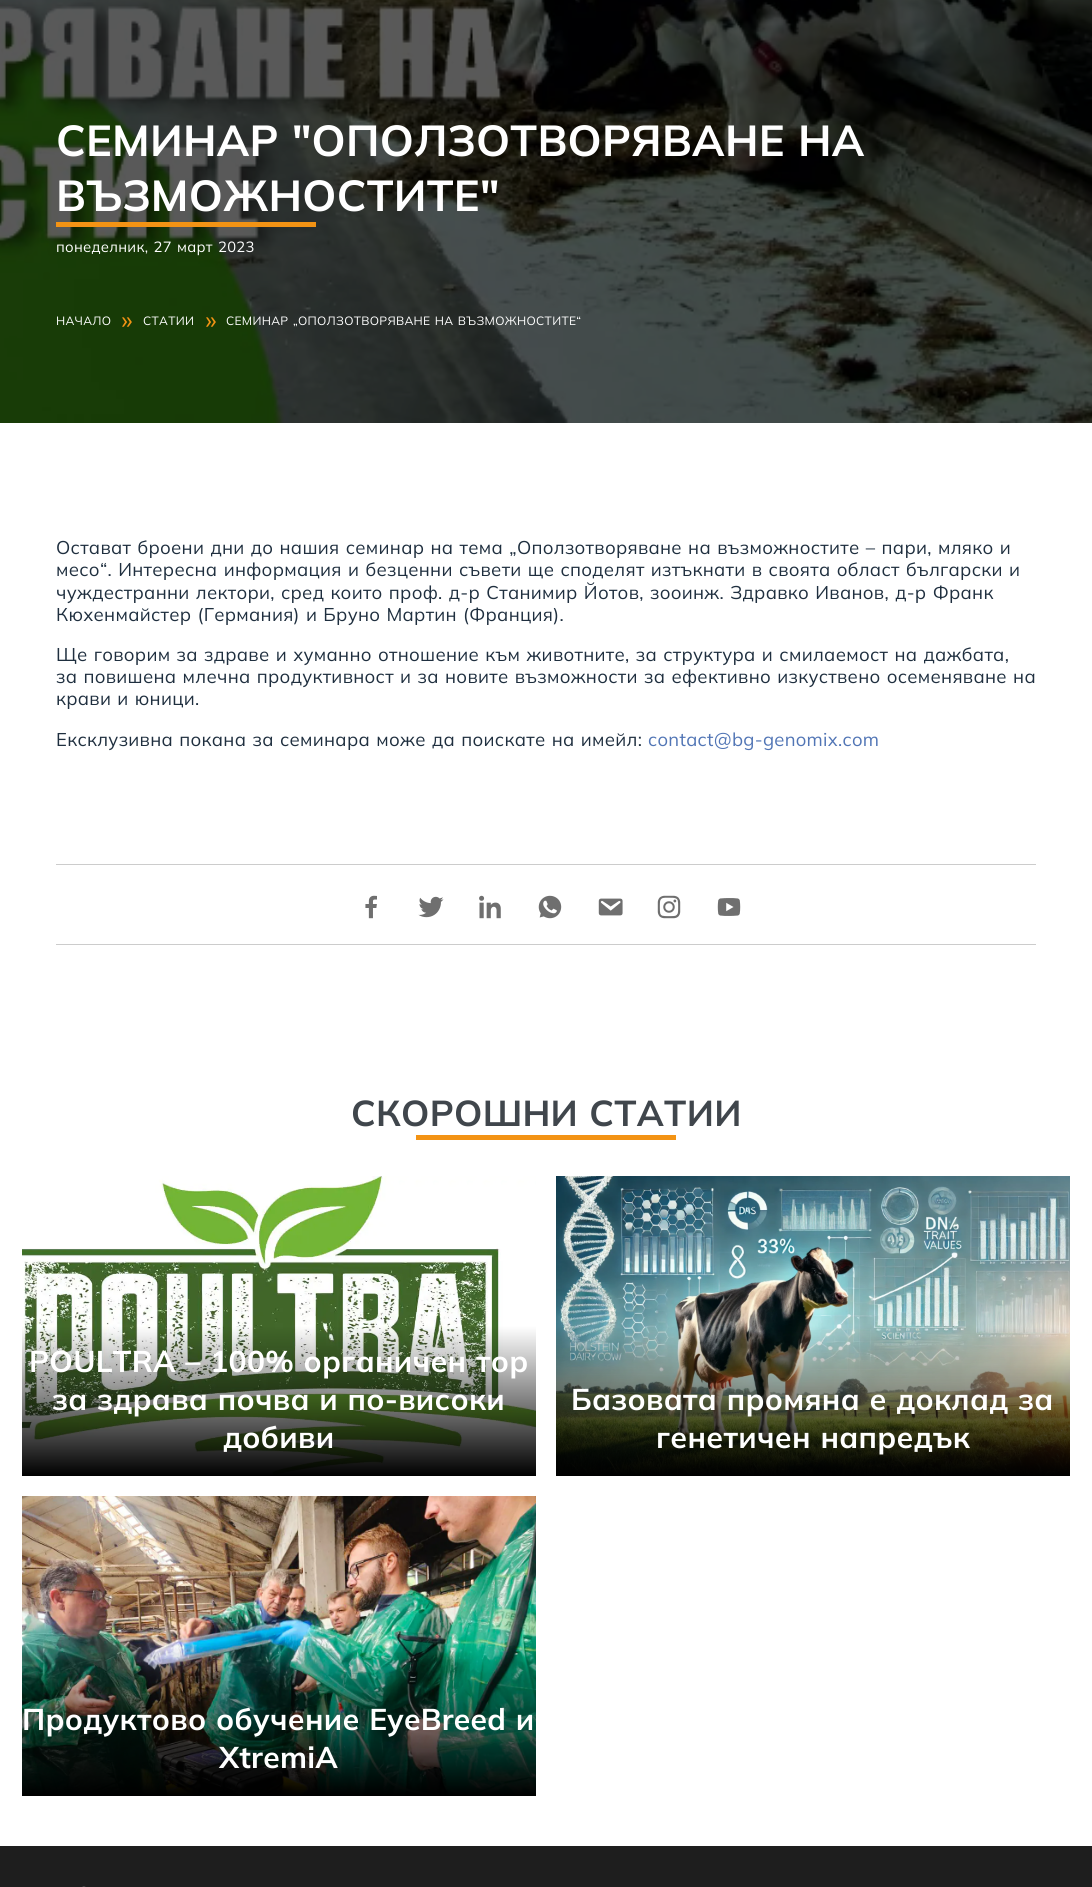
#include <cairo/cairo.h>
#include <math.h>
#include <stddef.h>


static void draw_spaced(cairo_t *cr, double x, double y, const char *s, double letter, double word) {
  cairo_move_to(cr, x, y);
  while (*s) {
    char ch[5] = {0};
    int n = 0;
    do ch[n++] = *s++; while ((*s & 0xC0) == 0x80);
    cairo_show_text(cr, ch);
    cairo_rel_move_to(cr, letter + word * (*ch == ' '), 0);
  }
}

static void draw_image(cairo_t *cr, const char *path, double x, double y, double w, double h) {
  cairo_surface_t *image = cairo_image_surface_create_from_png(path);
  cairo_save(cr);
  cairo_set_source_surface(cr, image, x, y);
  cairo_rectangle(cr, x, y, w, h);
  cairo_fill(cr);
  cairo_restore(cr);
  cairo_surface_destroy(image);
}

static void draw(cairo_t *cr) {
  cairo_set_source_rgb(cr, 1, 1, 1);
  cairo_paint(cr);
  draw_image(cr, "images/1.png", 0, 0, 1092, 423);
  cairo_set_source_rgb(cr, 243 / 255.0, 147 / 255.0, 20 / 255.0);
  cairo_rectangle(cr, 56, 222, 260, 5);
  cairo_fill(cr);
  cairo_set_source_rgb(cr, 204 / 255.0, 204 / 255.0, 204 / 255.0);
  cairo_rectangle(cr, 56, 864, 980, 1);
  cairo_fill(cr);
  cairo_rectangle(cr, 56, 944, 980, 1);
  cairo_fill(cr);
  draw_image(cr, "images/2.png", 365, 895, 12, 24);
  draw_image(cr, "images/3.png", 418, 896, 26, 22);
  draw_image(cr, "images/4.png", 479, 895, 22, 24);
  draw_image(cr, "images/5.png", 538, 895, 24, 24);
  draw_image(cr, "images/6.png", 598, 898, 25, 18);
  draw_image(cr, "images/7.png", 657, 895, 24, 24);
  draw_image(cr, "images/8.png", 717, 898, 24, 18);
  cairo_set_source_rgb(cr, 243 / 255.0, 147 / 255.0, 20 / 255.0);
  cairo_rectangle(cr, 416, 1135, 260, 5);
  cairo_fill(cr);
  draw_image(cr, "images/9.png", 22, 1176, 514, 300);
  draw_image(cr, "images/10.png", 556, 1176, 514, 300);
  draw_image(cr, "images/11.png", 22, 1496, 514, 300);
  cairo_set_source_rgb(cr, 30 / 255.0, 30 / 255.0, 30 / 255.0);
  cairo_rectangle(cr, 0, 1846, 1092, 41);
  cairo_fill(cr);
  draw_image(cr, "images/12.png", 82, 1886, 4, 1);
  cairo_select_font_face(cr, "Mulish", CAIRO_FONT_SLANT_NORMAL, CAIRO_FONT_WEIGHT_BOLD);
  cairo_set_font_size(cr, 43.3);
  cairo_set_source_rgb(cr, 1, 1, 1);
  draw_spaced(cr, 56, 156, "СЕМИНАР \"ОПОЛЗОТВОРЯВАНЕ НА", 0.3, 1);
  draw_spaced(cr, 56, 211, "ВЪЗМОЖНОСТИТЕ\"", 0.3, 0);
  cairo_select_font_face(cr, "Mulish", CAIRO_FONT_SLANT_NORMAL, CAIRO_FONT_WEIGHT_NORMAL);
  cairo_set_font_size(cr, 14.75);
  draw_spaced(cr, 56, 252, "понеделник, 27 март", 0.3, 1);
  draw_spaced(cr, 218, 252, "2023", 0.3, 0);
  cairo_set_font_size(cr, 12);
  draw_spaced(cr, 56, 325, "НАЧАЛО", 0.3, 0);
  cairo_set_font_size(cr, 26);
  cairo_set_source_rgb(cr, 243 / 255.0, 147 / 255.0, 20 / 255.0);
  draw_spaced(cr, 121, 329, "»", 0.3, 0);
  cairo_set_font_size(cr, 12);
  cairo_set_source_rgb(cr, 1, 1, 1);
  draw_spaced(cr, 143, 325, "СТАТИИ", 0.3, 0);
  cairo_set_font_size(cr, 26);
  cairo_set_source_rgb(cr, 243 / 255.0, 147 / 255.0, 20 / 255.0);
  draw_spaced(cr, 205, 329, "»", 0.3, 0);
  cairo_set_font_size(cr, 12);
  cairo_set_source_rgb(cr, 1, 1, 1);
  draw_spaced(cr, 226, 325, "СЕМИНАР „ОПОЛЗОТВОРЯВАНЕ НА ВЪЗМОЖНОСТИТЕ“", 0.3, 1);
  cairo_set_font_size(cr, 18.45);
  cairo_set_source_rgb(cr, 31 / 255.0, 47 / 255.0, 63 / 255.0);
  draw_spaced(cr, 56, 554, "Остават броени дни до нашия семинар на тема „Оползотворяване на възможностите – пари, мляко и", 0.3, 1.1);
  draw_spaced(cr, 56, 576, "месо“. Интересна информация и безценни съвети ще споделят изтъкнати в своята област български и", 0.3, 1.1);
  draw_spaced(cr, 56, 599, "чуждестранни лектори, сред които проф. д-р Станимир Йотов, зооинж. Здравко Иванов, д-р Франк", 0.3, 1.1);
  draw_spaced(cr, 56, 621, "Кюхенмайстер (Германия) и Бруно Мартин (Франция).", 0.3, 1);
  draw_spaced(cr, 56, 661, "Ще говорим за здраве и хуманно отношение към животните, за структура и смилаемост на дажбата,", 0.3, 1.1);
  draw_spaced(cr, 56, 683, "за повишена млечна продуктивност и за новите възможности за ефективно изкуствено осеменяване на", 0.3, 1.1);
  draw_spaced(cr, 56, 705, "крави и юници.", 0.3, 1);
  draw_spaced(cr, 56, 746, "Ексклузивна покана за семинара може да поискате на имейл:", 0.3, 1.1);
  cairo_set_source_rgb(cr, 81 / 255.0, 117 / 255.0, 181 / 255.0);
  draw_spaced(cr, 648, 746, "contact@bg-genomix.com", 0.3, 0);
  cairo_select_font_face(cr, "Mulish", CAIRO_FONT_SLANT_NORMAL, CAIRO_FONT_WEIGHT_BOLD);
  cairo_set_font_size(cr, 36);
  cairo_set_source_rgb(cr, 64 / 255.0, 70 / 255.0, 76 / 255.0);
  draw_spaced(cr, 351, 1126, "СКОРОШНИ СТАТИИ", 0.3, 1);
  cairo_set_font_size(cr, 30);
  cairo_set_source_rgb(cr, 1, 1, 1);
  draw_spaced(cr, 29, 1372, "POULTRA – 100% органичен тор", 0.3, 1);
  draw_spaced(cr, 52, 1410, "за здрава почва и по-високи", 0.3, 1);
  draw_spaced(cr, 223, 1448, "добиви", 0.3, 0);
  draw_spaced(cr, 571, 1410, "Базовата промяна е доклад за", 0.3, 1);
  draw_spaced(cr, 656, 1448, "генетичен напредък", 0.3, 1);
  draw_spaced(cr, 22, 1730, "Продуктово обучение EyeBreed и", 0.3, 1);
  draw_spaced(cr, 219, 1768, "XtremiA", 0.3, 0);
}

int main(void) {
  cairo_surface_t *surface = cairo_image_surface_create(CAIRO_FORMAT_RGB24, 1092, 1887);
  cairo_t *cr = cairo_create(surface);
  cairo_font_options_t *options = cairo_font_options_create();
  cairo_font_options_set_hint_metrics(options, CAIRO_HINT_METRICS_OFF);
  cairo_font_options_set_hint_style(options, CAIRO_HINT_STYLE_NONE);
  cairo_set_font_options(cr, options);
  cairo_set_miter_limit(cr, 4);
  draw(cr);
  cairo_surface_write_to_png(surface, "out.png");
  cairo_font_options_destroy(options);
  cairo_destroy(cr);
  cairo_surface_destroy(surface);
  return 0;
}
